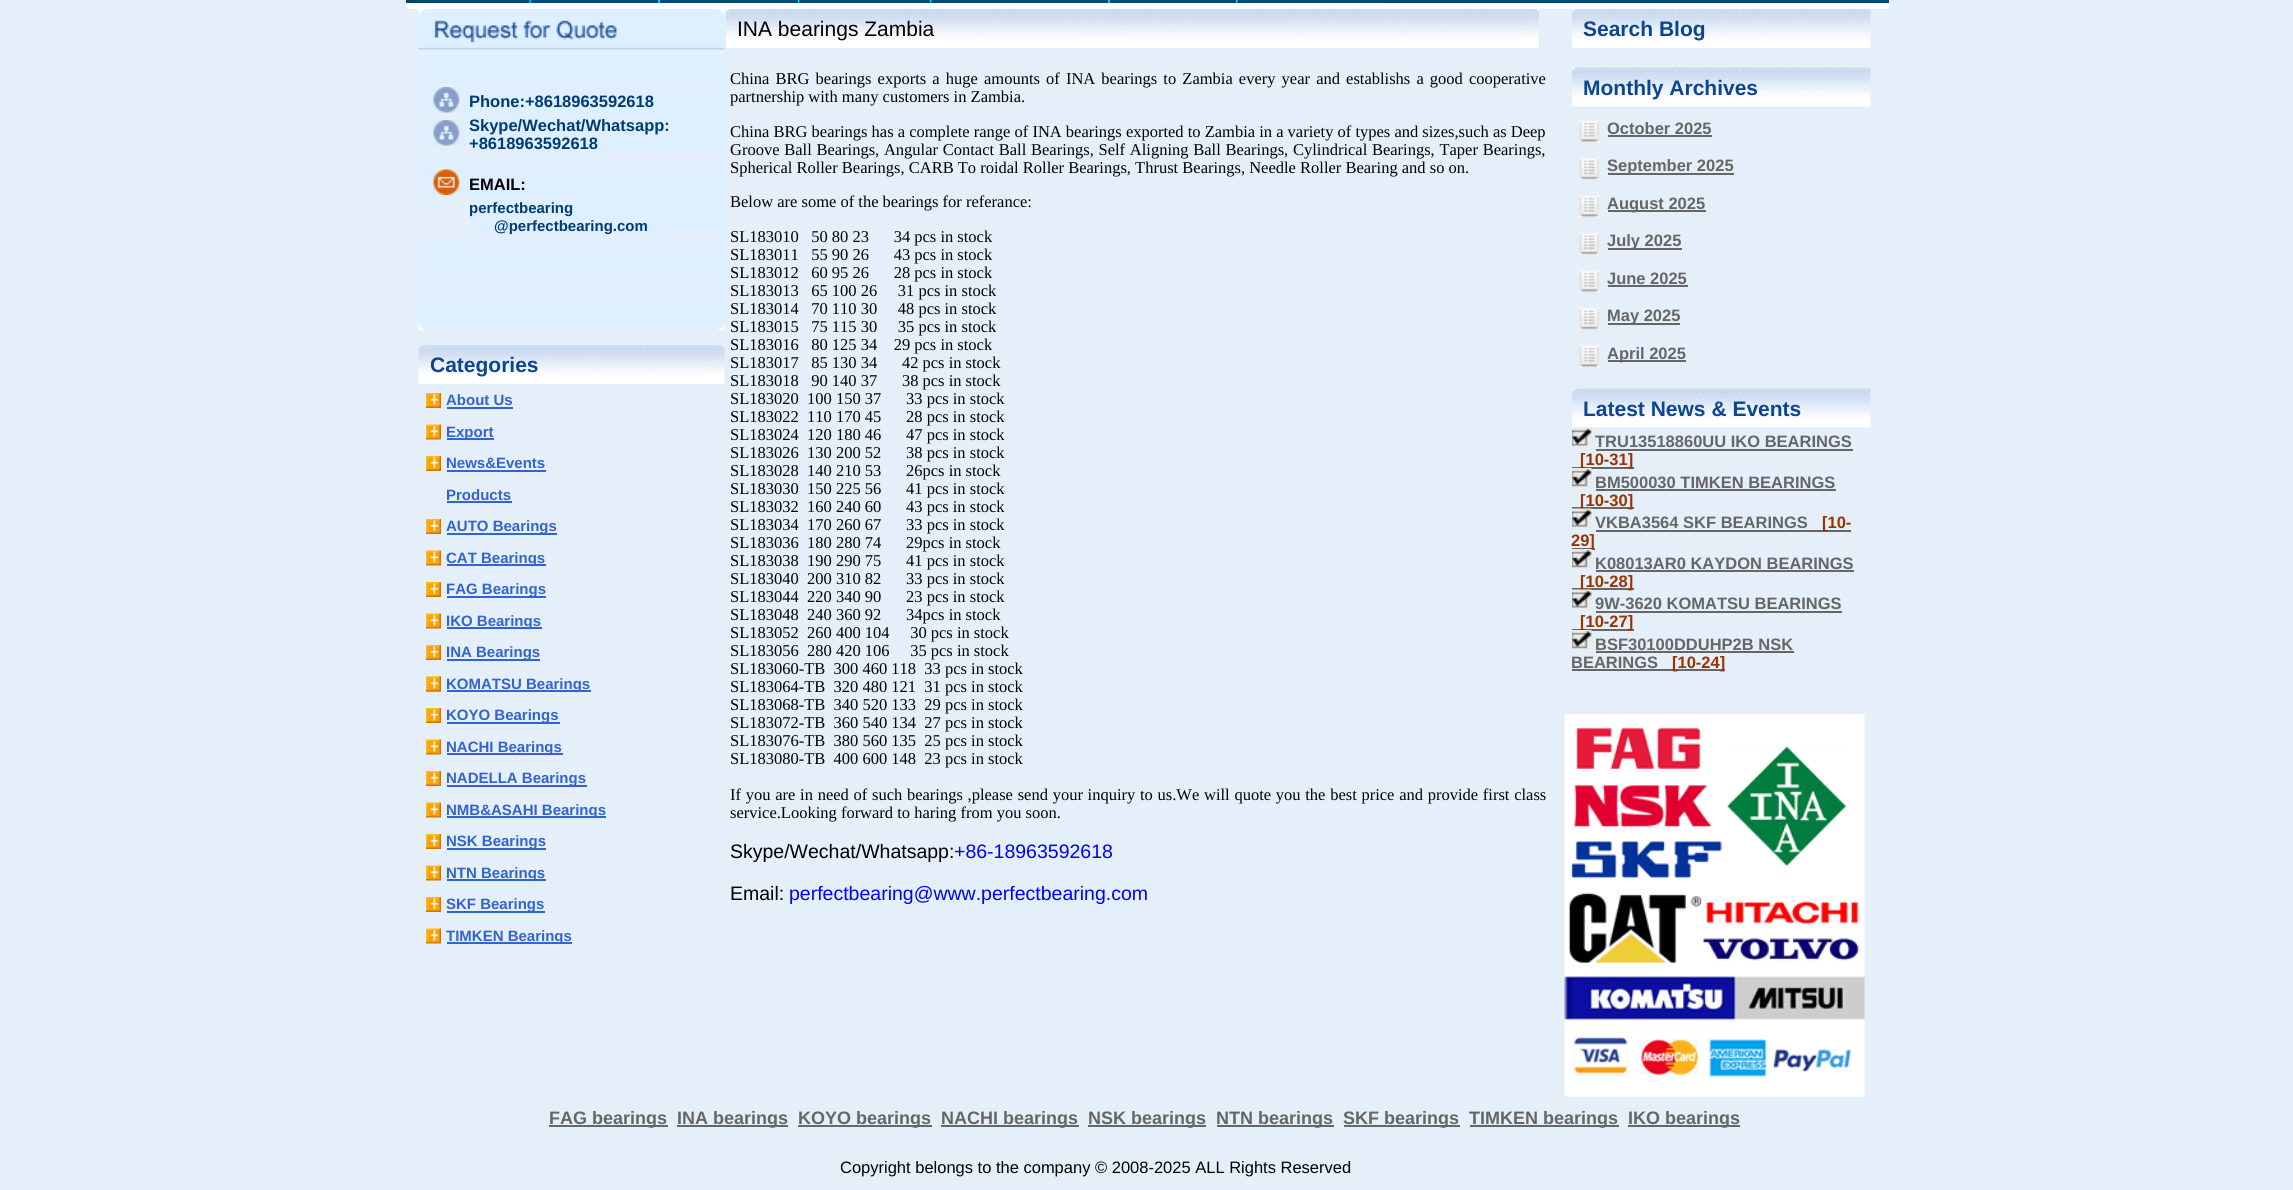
#include <cairo/cairo.h>
#include <math.h>
#include <stddef.h>


static void draw_spaced(cairo_t *cr, double x, double y, const char *s, double letter, double word) {
  cairo_move_to(cr, x, y);
  while (*s) {
    char ch[5] = {0};
    int n = 0;
    do ch[n++] = *s++; while ((*s & 0xC0) == 0x80);
    cairo_show_text(cr, ch);
    cairo_rel_move_to(cr, letter + word * (*ch == ' '), 0);
  }
}

static void draw_image(cairo_t *cr, const char *path, double x, double y, double w, double h) {
  cairo_surface_t *image = cairo_image_surface_create_from_png(path);
  cairo_save(cr);
  cairo_set_source_surface(cr, image, x, y);
  cairo_rectangle(cr, x, y, w, h);
  cairo_fill(cr);
  cairo_restore(cr);
  cairo_surface_destroy(image);
}

static void draw(cairo_t *cr) {
  cairo_set_source_rgb(cr, 228 / 255.0, 239 / 255.0, 249 / 255.0);
  cairo_paint(cr);
  cairo_set_source_rgb(cr, 1, 1, 1);
  cairo_rectangle(cr, 407, 0, 1482, 9);
  cairo_fill(cr);
  cairo_set_source_rgb(cr, 0, 70 / 255.0, 110 / 255.0);
  cairo_rectangle(cr, 406, 0, 124, 3);
  cairo_fill(cr);
  draw_image(cr, "images/1.png", 529, 0, 130, 3);
  draw_image(cr, "images/2.png", 658, 0, 140, 3);
  draw_image(cr, "images/3.png", 798, 0, 132, 3);
  draw_image(cr, "images/4.png", 930, 0, 179, 3);
  draw_image(cr, "images/5.png", 1108, 0, 128, 3);
  draw_image(cr, "images/6.png", 1236, 0, 147, 3);
  cairo_rectangle(cr, 1383, 0, 506, 3);
  cairo_fill(cr);
  draw_image(cr, "images/7.png", 418, 9, 307, 41);
  draw_image(cr, "images/8.png", 419, 52, 50, 32);
  draw_image(cr, "images/9.png", 470, 52, 254, 32);
  draw_image(cr, "images/10.png", 419, 87, 50, 26);
  cairo_set_source_rgb(cr, 222 / 255.0, 239 / 255.0, 1);
  cairo_rectangle(cr, 470, 87, 255, 65);
  cairo_fill(cr);
  draw_image(cr, "images/10.png", 419, 120, 50, 26);
  draw_image(cr, "images/11.png", 419, 158, 50, 9);
  cairo_rectangle(cr, 470, 158, 254, 8);
  cairo_fill(cr);
  draw_image(cr, "images/12.png", 419, 169, 50, 26);
  cairo_rectangle(cr, 470, 170, 255, 64);
  cairo_fill(cr);
  draw_image(cr, "images/13.png", 419, 239, 50, 10);
  cairo_rectangle(cr, 470, 239, 254, 10);
  cairo_fill(cr);
  cairo_rectangle(cr, 419, 252, 306, 26);
  cairo_fill(cr);
  draw_image(cr, "images/14.png", 419, 282, 50, 11);
  cairo_rectangle(cr, 470, 282, 254, 10);
  cairo_fill(cr);
  draw_image(cr, "images/15.png", 418, 296, 51, 34);
  draw_image(cr, "images/16.png", 470, 296, 255, 34);
  draw_image(cr, "images/17.png", 418, 345, 307, 39);
  draw_image(cr, "images/18.png", 426, 393, 15, 15);
  cairo_set_source_rgb(cr, 50 / 255.0, 99 / 255.0, 206 / 255.0);
  cairo_rectangle(cr, 447, 407, 66, 2);
  cairo_fill(cr);
  draw_image(cr, "images/19.png", 426, 424, 15, 16);
  cairo_rectangle(cr, 447, 438, 47, 2);
  cairo_fill(cr);
  draw_image(cr, "images/18.png", 426, 456, 15, 15);
  cairo_rectangle(cr, 447, 470, 99, 2);
  cairo_fill(cr);
  draw_image(cr, "images/19.png", 426, 676, 15, 16);
  cairo_rectangle(cr, 447, 501, 65, 2);
  cairo_fill(cr);
  draw_image(cr, "images/18.png", 426, 519, 15, 15);
  cairo_rectangle(cr, 447, 533, 110, 2);
  cairo_fill(cr);
  draw_image(cr, "images/19.png", 426, 550, 15, 16);
  cairo_rectangle(cr, 447, 564, 99, 2);
  cairo_fill(cr);
  draw_image(cr, "images/18.png", 426, 582, 15, 15);
  cairo_rectangle(cr, 447, 596, 99, 2);
  cairo_fill(cr);
  draw_image(cr, "images/19.png", 426, 613, 15, 16);
  cairo_rectangle(cr, 447, 627, 95, 2);
  cairo_fill(cr);
  draw_image(cr, "images/18.png", 426, 645, 15, 15);
  cairo_rectangle(cr, 447, 659, 93, 2);
  cairo_fill(cr);
  draw_image(cr, "images/20.png", 426, 676, 15, 16);
  cairo_rectangle(cr, 447, 690, 144, 2);
  cairo_fill(cr);
  draw_image(cr, "images/18.png", 426, 708, 15, 15);
  cairo_rectangle(cr, 447, 722, 113, 2);
  cairo_fill(cr);
  draw_image(cr, "images/19.png", 426, 739, 15, 16);
  cairo_rectangle(cr, 447, 753, 116, 2);
  cairo_fill(cr);
  draw_image(cr, "images/18.png", 426, 771, 15, 15);
  cairo_rectangle(cr, 447, 785, 140, 2);
  cairo_fill(cr);
  draw_image(cr, "images/19.png", 426, 802, 15, 16);
  cairo_rectangle(cr, 447, 816, 159, 2);
  cairo_fill(cr);
  draw_image(cr, "images/18.png", 426, 834, 15, 15);
  cairo_rectangle(cr, 447, 848, 99, 2);
  cairo_fill(cr);
  draw_image(cr, "images/19.png", 426, 865, 15, 16);
  cairo_rectangle(cr, 447, 879, 99, 2);
  cairo_fill(cr);
  draw_image(cr, "images/18.png", 426, 897, 15, 15);
  cairo_rectangle(cr, 447, 911, 98, 2);
  cairo_fill(cr);
  draw_image(cr, "images/19.png", 426, 928, 15, 16);
  cairo_rectangle(cr, 447, 942, 125, 2);
  cairo_fill(cr);
  draw_image(cr, "images/21.png", 726, 9, 813, 39);
  draw_image(cr, "images/22.png", 1572, 9, 299, 39);
  draw_image(cr, "images/23.png", 1572, 67, 299, 40);
  draw_image(cr, "images/24.png", 1579, 120, 20, 23);
  cairo_set_source_rgb(cr, 102 / 255.0, 102 / 255.0, 102 / 255.0);
  cairo_rectangle(cr, 1608, 135, 104, 2);
  cairo_fill(cr);
  draw_image(cr, "images/25.png", 1579, 157, 20, 23);
  cairo_rectangle(cr, 1608, 173, 126, 2);
  cairo_fill(cr);
  draw_image(cr, "images/24.png", 1579, 195, 20, 23);
  cairo_rectangle(cr, 1608, 210, 98, 2);
  cairo_fill(cr);
  draw_image(cr, "images/25.png", 1579, 232, 20, 23);
  cairo_rectangle(cr, 1608, 248, 74, 2);
  cairo_fill(cr);
  draw_image(cr, "images/24.png", 1579, 270, 20, 23);
  cairo_rectangle(cr, 1608, 285, 80, 2);
  cairo_fill(cr);
  draw_image(cr, "images/25.png", 1579, 307, 20, 23);
  cairo_rectangle(cr, 1608, 323, 72, 2);
  cairo_fill(cr);
  draw_image(cr, "images/24.png", 1579, 345, 20, 23);
  cairo_rectangle(cr, 1608, 360, 78, 2);
  cairo_fill(cr);
  draw_image(cr, "images/23.png", 1572, 388, 299, 40);
  draw_image(cr, "images/26.png", 1572, 427, 20, 20);
  cairo_rectangle(cr, 1596, 449, 257, 2);
  cairo_fill(cr);
  cairo_rectangle(cr, 1572, 467, 9, 1);
  cairo_fill(cr);
  cairo_rectangle(cr, 1581, 467, 53, 2);
  cairo_fill(cr);
  cairo_rectangle(cr, 1596, 489, 240, 2);
  cairo_fill(cr);
  cairo_rectangle(cr, 1572, 507, 62, 2);
  cairo_fill(cr);
  cairo_rectangle(cr, 1596, 530, 255, 2);
  cairo_fill(cr);
  cairo_rectangle(cr, 1572, 548, 23, 2);
  cairo_fill(cr);
  cairo_rectangle(cr, 1596, 570, 258, 2);
  cairo_fill(cr);
  cairo_rectangle(cr, 1572, 588, 62, 2);
  cairo_fill(cr);
  cairo_rectangle(cr, 1596, 611, 246, 2);
  cairo_fill(cr);
  cairo_rectangle(cr, 1572, 629, 9, 1);
  cairo_fill(cr);
  cairo_rectangle(cr, 1581, 629, 53, 2);
  cairo_fill(cr);
  cairo_rectangle(cr, 1596, 651, 198, 2);
  cairo_fill(cr);
  cairo_rectangle(cr, 1572, 669, 153, 2);
  cairo_fill(cr);
  draw_image(cr, "images/30.png", 1564, 714, 301, 383);
  cairo_rectangle(cr, 549, 1125, 119, 2);
  cairo_fill(cr);
  cairo_rectangle(cr, 677, 1125, 111, 2);
  cairo_fill(cr);
  cairo_rectangle(cr, 798, 1125, 134, 2);
  cairo_fill(cr);
  cairo_rectangle(cr, 941, 1125, 138, 2);
  cairo_fill(cr);
  cairo_rectangle(cr, 1088, 1125, 118, 2);
  cairo_fill(cr);
  cairo_rectangle(cr, 1217, 1125, 117, 2);
  cairo_fill(cr);
  cairo_rectangle(cr, 1344, 1125, 116, 2);
  cairo_fill(cr);
  cairo_rectangle(cr, 1470, 1125, 149, 2);
  cairo_fill(cr);
  cairo_rectangle(cr, 1628, 1125, 112, 2);
  cairo_fill(cr);
  cairo_select_font_face(cr, "Liberation Sans", CAIRO_FONT_SLANT_NORMAL, CAIRO_FONT_WEIGHT_BOLD);
  cairo_set_font_size(cr, 16.5);
  cairo_set_source_rgb(cr, 0, 59 / 255.0, 114 / 255.0);
  cairo_move_to(cr, 469, 107);
  cairo_show_text(cr, "Phone:+8618963592618");
  cairo_move_to(cr, 469, 131);
  cairo_show_text(cr, "Skype/Wechat/Whatsapp:");
  cairo_move_to(cr, 469, 149);
  cairo_show_text(cr, "+8618963592618");
  cairo_set_source_rgb(cr, 0, 0, 0);
  cairo_move_to(cr, 469, 190);
  cairo_show_text(cr, "EMAIL:");
  cairo_set_font_size(cr, 15);
  cairo_set_source_rgb(cr, 0, 59 / 255.0, 114 / 255.0);
  cairo_move_to(cr, 469, 213);
  cairo_show_text(cr, "perfectbearing");
  cairo_move_to(cr, 494, 231);
  cairo_show_text(cr, "@perfectbearing.com");
  cairo_set_font_size(cr, 21);
  cairo_set_source_rgb(cr, 14 / 255.0, 69 / 255.0, 145 / 255.0);
  cairo_move_to(cr, 430, 372);
  cairo_show_text(cr, "Categories");
  cairo_set_font_size(cr, 15);
  cairo_set_source_rgb(cr, 50 / 255.0, 99 / 255.0, 206 / 255.0);
  cairo_move_to(cr, 446, 405);
  cairo_show_text(cr, "About Us");
  cairo_move_to(cr, 446, 437);
  cairo_show_text(cr, "Export");
  cairo_move_to(cr, 446, 468);
  cairo_show_text(cr, "News&Events");
  cairo_move_to(cr, 446, 500);
  cairo_show_text(cr, "Products");
  cairo_move_to(cr, 446, 531);
  cairo_show_text(cr, "AUTO Bearings");
  cairo_move_to(cr, 446, 563);
  cairo_show_text(cr, "CAT Bearings");
  cairo_move_to(cr, 446, 594);
  cairo_show_text(cr, "FAG Bearings");
  cairo_move_to(cr, 446, 626);
  cairo_show_text(cr, "IKO Bearings");
  cairo_move_to(cr, 446, 657);
  cairo_show_text(cr, "INA Bearings");
  cairo_move_to(cr, 446, 689);
  cairo_show_text(cr, "KOMATSU Bearings");
  cairo_move_to(cr, 446, 720);
  cairo_show_text(cr, "KOYO Bearings");
  cairo_move_to(cr, 446, 752);
  cairo_show_text(cr, "NACHI Bearings");
  cairo_move_to(cr, 446, 783);
  cairo_show_text(cr, "NADELLA Bearings");
  cairo_move_to(cr, 446, 815);
  cairo_show_text(cr, "NMB&ASAHI Bearings");
  cairo_move_to(cr, 446, 846);
  cairo_show_text(cr, "NSK Bearings");
  cairo_move_to(cr, 446, 878);
  cairo_show_text(cr, "NTN Bearings");
  cairo_move_to(cr, 446, 909);
  cairo_show_text(cr, "SKF Bearings");
  cairo_move_to(cr, 446, 941);
  cairo_show_text(cr, "TIMKEN Bearings");
  cairo_select_font_face(cr, "Liberation Sans", CAIRO_FONT_SLANT_NORMAL, CAIRO_FONT_WEIGHT_NORMAL);
  cairo_set_font_size(cr, 21);
  cairo_set_source_rgb(cr, 0, 0, 0);
  cairo_move_to(cr, 737, 36);
  cairo_show_text(cr, "INA bearings Zambia");
  cairo_select_font_face(cr, "Liberation Serif", CAIRO_FONT_SLANT_NORMAL, CAIRO_FONT_WEIGHT_NORMAL);
  cairo_set_font_size(cr, 16.5);
  draw_spaced(cr, 730, 84, "China BRG bearings exports a huge amounts of INA bearings to Zambia every year and establishs a good cooperative", 0, 2);
  cairo_move_to(cr, 730, 102);
  cairo_show_text(cr, "partnership with many customers in Zambia.");
  cairo_move_to(cr, 730, 137);
  cairo_show_text(cr, "China BRG bearings has a complete range of INA bearings exported to Zambia in a variety of types and sizes,such as Deep");
  draw_spaced(cr, 730, 155, "Groove Ball Bearings, Angular Contact Ball Bearings, Self Aligning Ball Bearings, Cylindrical Bearings, Taper Bearings,", 0, 0.6);
  cairo_move_to(cr, 730, 173);
  cairo_show_text(cr, "Spherical Roller Bearings, CARB To roidal Roller Bearings, Thrust Bearings, Needle Roller Bearing and so on.");
  cairo_move_to(cr, 730, 207);
  cairo_show_text(cr, "Below are some of the bearings for referance:");
  cairo_move_to(cr, 730, 242);
  cairo_show_text(cr, "SL183010   50 80 23      34 pcs in stock");
  cairo_move_to(cr, 730, 260);
  cairo_show_text(cr, "SL183011   55 90 26      43 pcs in stock");
  cairo_move_to(cr, 730, 278);
  cairo_show_text(cr, "SL183012   60 95 26      28 pcs in stock");
  cairo_move_to(cr, 730, 296);
  cairo_show_text(cr, "SL183013   65 100 26     31 pcs in stock");
  cairo_move_to(cr, 730, 314);
  cairo_show_text(cr, "SL183014   70 110 30     48 pcs in stock");
  cairo_move_to(cr, 730, 332);
  cairo_show_text(cr, "SL183015   75 115 30     35 pcs in stock");
  cairo_move_to(cr, 730, 350);
  cairo_show_text(cr, "SL183016   80 125 34    29 pcs in stock");
  cairo_move_to(cr, 730, 368);
  cairo_show_text(cr, "SL183017   85 130 34      42 pcs in stock");
  cairo_move_to(cr, 730, 386);
  cairo_show_text(cr, "SL183018   90 140 37      38 pcs in stock");
  cairo_move_to(cr, 730, 404);
  cairo_show_text(cr, "SL183020  100 150 37      33 pcs in stock");
  cairo_move_to(cr, 730, 422);
  cairo_show_text(cr, "SL183022  110 170 45      28 pcs in stock");
  cairo_move_to(cr, 730, 440);
  cairo_show_text(cr, "SL183024  120 180 46      47 pcs in stock");
  cairo_move_to(cr, 730, 458);
  cairo_show_text(cr, "SL183026  130 200 52      38 pcs in stock");
  cairo_move_to(cr, 730, 476);
  cairo_show_text(cr, "SL183028  140 210 53      26pcs in stock");
  cairo_move_to(cr, 730, 494);
  cairo_show_text(cr, "SL183030  150 225 56      41 pcs in stock");
  cairo_move_to(cr, 730, 512);
  cairo_show_text(cr, "SL183032  160 240 60      43 pcs in stock");
  cairo_move_to(cr, 730, 530);
  cairo_show_text(cr, "SL183034  170 260 67      33 pcs in stock");
  cairo_move_to(cr, 730, 548);
  cairo_show_text(cr, "SL183036  180 280 74      29pcs in stock");
  cairo_move_to(cr, 730, 566);
  cairo_show_text(cr, "SL183038  190 290 75      41 pcs in stock");
  cairo_move_to(cr, 730, 584);
  cairo_show_text(cr, "SL183040  200 310 82      33 pcs in stock");
  cairo_move_to(cr, 730, 602);
  cairo_show_text(cr, "SL183044  220 340 90      23 pcs in stock");
  cairo_move_to(cr, 730, 620);
  cairo_show_text(cr, "SL183048  240 360 92      34pcs in stock");
  cairo_move_to(cr, 730, 638);
  cairo_show_text(cr, "SL183052  260 400 104     30 pcs in stock");
  cairo_move_to(cr, 730, 656);
  cairo_show_text(cr, "SL183056  280 420 106     35 pcs in stock");
  cairo_move_to(cr, 730, 674);
  cairo_show_text(cr, "SL183060-TB  300 460 118  33 pcs in stock");
  cairo_move_to(cr, 730, 692);
  cairo_show_text(cr, "SL183064-TB  320 480 121  31 pcs in stock");
  cairo_move_to(cr, 730, 710);
  cairo_show_text(cr, "SL183068-TB  340 520 133  29 pcs in stock");
  cairo_move_to(cr, 730, 728);
  cairo_show_text(cr, "SL183072-TB  360 540 134  27 pcs in stock");
  cairo_move_to(cr, 730, 746);
  cairo_show_text(cr, "SL183076-TB  380 560 135  25 pcs in stock");
  cairo_move_to(cr, 730, 764);
  cairo_show_text(cr, "SL183080-TB  400 600 148  23 pcs in stock");
  draw_spaced(cr, 730, 800, "If you are in need of such bearings ,please send your inquiry to us.We will quote you the best price and provide first class", 0, 0.6);
  cairo_move_to(cr, 730, 818);
  cairo_show_text(cr, "service.Looking forward to haring from you soon.");
  cairo_select_font_face(cr, "Liberation Sans", CAIRO_FONT_SLANT_NORMAL, CAIRO_FONT_WEIGHT_NORMAL);
  cairo_set_font_size(cr, 19.5);
  cairo_move_to(cr, 730, 858);
  cairo_show_text(cr, "Skype/Wechat/Whatsapp:");
  cairo_set_source_rgb(cr, 0, 0, 1);
  cairo_move_to(cr, 954, 858);
  cairo_show_text(cr, "+86-18963592618");
  cairo_set_source_rgb(cr, 0, 0, 0);
  cairo_move_to(cr, 730, 900);
  cairo_show_text(cr, "Email:");
  cairo_set_source_rgb(cr, 0, 0, 1);
  cairo_move_to(cr, 789, 900);
  cairo_show_text(cr, "perfectbearing@www.perfectbearing.com");
  cairo_select_font_face(cr, "Liberation Sans", CAIRO_FONT_SLANT_NORMAL, CAIRO_FONT_WEIGHT_BOLD);
  cairo_set_font_size(cr, 21);
  cairo_set_source_rgb(cr, 14 / 255.0, 69 / 255.0, 145 / 255.0);
  cairo_move_to(cr, 1583, 36);
  cairo_show_text(cr, "Search Blog");
  cairo_move_to(cr, 1583, 95);
  cairo_show_text(cr, "Monthly Archives");
  cairo_set_font_size(cr, 16.5);
  cairo_set_source_rgb(cr, 102 / 255.0, 102 / 255.0, 102 / 255.0);
  cairo_move_to(cr, 1607, 134);
  cairo_show_text(cr, "October 2025");
  cairo_move_to(cr, 1607, 171);
  cairo_show_text(cr, "September 2025");
  cairo_move_to(cr, 1607, 209);
  cairo_show_text(cr, "August 2025");
  cairo_move_to(cr, 1607, 246);
  cairo_show_text(cr, "July 2025");
  cairo_move_to(cr, 1607, 284);
  cairo_show_text(cr, "June 2025");
  cairo_move_to(cr, 1607, 321);
  cairo_show_text(cr, "May 2025");
  cairo_move_to(cr, 1607, 359);
  cairo_show_text(cr, "April 2025");
  cairo_set_font_size(cr, 21);
  cairo_set_source_rgb(cr, 14 / 255.0, 69 / 255.0, 145 / 255.0);
  cairo_move_to(cr, 1583, 416);
  cairo_show_text(cr, "Latest News & Events");
  cairo_set_font_size(cr, 16.5);
  cairo_set_source_rgb(cr, 102 / 255.0, 102 / 255.0, 102 / 255.0);
  cairo_move_to(cr, 1595, 447);
  cairo_show_text(cr, "TRU13518860UU IKO BEARINGS");
  cairo_set_source_rgb(cr, 153 / 255.0, 51 / 255.0, 0);
  cairo_move_to(cr, 1580, 465);
  cairo_show_text(cr, "[10-31]");
  draw_image(cr, "images/27.png", 1572, 468, 20, 20);
  cairo_set_source_rgb(cr, 102 / 255.0, 102 / 255.0, 102 / 255.0);
  cairo_move_to(cr, 1595, 488);
  cairo_show_text(cr, "BM500030 TIMKEN BEARINGS");
  cairo_set_source_rgb(cr, 153 / 255.0, 51 / 255.0, 0);
  cairo_move_to(cr, 1580, 506);
  cairo_show_text(cr, "[10-30]");
  draw_image(cr, "images/28.png", 1572, 508, 20, 20);
  cairo_set_source_rgb(cr, 102 / 255.0, 102 / 255.0, 102 / 255.0);
  cairo_move_to(cr, 1595, 528);
  cairo_show_text(cr, "VKBA3564 SKF BEARINGS");
  cairo_set_source_rgb(cr, 153 / 255.0, 51 / 255.0, 0);
  cairo_move_to(cr, 1822, 528);
  cairo_show_text(cr, "[10-");
  cairo_move_to(cr, 1571, 546);
  cairo_show_text(cr, "29]");
  draw_image(cr, "images/29.png", 1572, 549, 20, 20);
  cairo_set_source_rgb(cr, 102 / 255.0, 102 / 255.0, 102 / 255.0);
  cairo_move_to(cr, 1595, 569);
  cairo_show_text(cr, "K08013AR0 KAYDON BEARINGS");
  cairo_set_source_rgb(cr, 153 / 255.0, 51 / 255.0, 0);
  cairo_move_to(cr, 1580, 587);
  cairo_show_text(cr, "[10-28]");
  draw_image(cr, "images/28.png", 1572, 589, 20, 20);
  cairo_set_source_rgb(cr, 102 / 255.0, 102 / 255.0, 102 / 255.0);
  cairo_move_to(cr, 1595, 609);
  cairo_show_text(cr, "9W-3620 KOMATSU BEARINGS");
  cairo_set_source_rgb(cr, 153 / 255.0, 51 / 255.0, 0);
  cairo_move_to(cr, 1580, 627);
  cairo_show_text(cr, "[10-27]");
  draw_image(cr, "images/27.png", 1572, 630, 20, 20);
  cairo_set_source_rgb(cr, 102 / 255.0, 102 / 255.0, 102 / 255.0);
  cairo_move_to(cr, 1595, 650);
  cairo_show_text(cr, "BSF30100DDUHP2B NSK");
  cairo_move_to(cr, 1571, 668);
  cairo_show_text(cr, "BEARINGS");
  cairo_set_source_rgb(cr, 153 / 255.0, 51 / 255.0, 0);
  cairo_move_to(cr, 1672, 668);
  cairo_show_text(cr, "[10-24]");
  cairo_set_font_size(cr, 18);
  cairo_set_source_rgb(cr, 102 / 255.0, 102 / 255.0, 102 / 255.0);
  cairo_move_to(cr, 549, 1124);
  cairo_show_text(cr, "FAG bearings");
  cairo_move_to(cr, 677, 1124);
  cairo_show_text(cr, "INA bearings");
  cairo_move_to(cr, 798, 1124);
  cairo_show_text(cr, "KOYO bearings");
  cairo_move_to(cr, 941, 1124);
  cairo_show_text(cr, "NACHI bearings");
  cairo_move_to(cr, 1088, 1124);
  cairo_show_text(cr, "NSK bearings");
  cairo_move_to(cr, 1216, 1124);
  cairo_show_text(cr, "NTN bearings");
  cairo_move_to(cr, 1343, 1124);
  cairo_show_text(cr, "SKF bearings");
  cairo_move_to(cr, 1469, 1124);
  cairo_show_text(cr, "TIMKEN bearings");
  cairo_move_to(cr, 1628, 1124);
  cairo_show_text(cr, "IKO bearings");
  cairo_select_font_face(cr, "Liberation Sans", CAIRO_FONT_SLANT_NORMAL, CAIRO_FONT_WEIGHT_NORMAL);
  cairo_set_font_size(cr, 16.5);
  cairo_set_source_rgb(cr, 0, 0, 0);
  cairo_move_to(cr, 840, 1173);
  cairo_show_text(cr, "Copyright belongs to the company © 2008-2025 ALL Rights Reserved");
}

int main(void) {
  cairo_surface_t *surface = cairo_image_surface_create(CAIRO_FORMAT_RGB24, 2293, 1190);
  cairo_t *cr = cairo_create(surface);
  cairo_font_options_t *options = cairo_font_options_create();
  cairo_font_options_set_hint_metrics(options, CAIRO_HINT_METRICS_OFF);
  cairo_font_options_set_hint_style(options, CAIRO_HINT_STYLE_NONE);
  cairo_set_font_options(cr, options);
  cairo_set_miter_limit(cr, 4);
  draw(cr);
  cairo_surface_write_to_png(surface, "out.png");
  cairo_font_options_destroy(options);
  cairo_destroy(cr);
  cairo_surface_destroy(surface);
  return 0;
}
